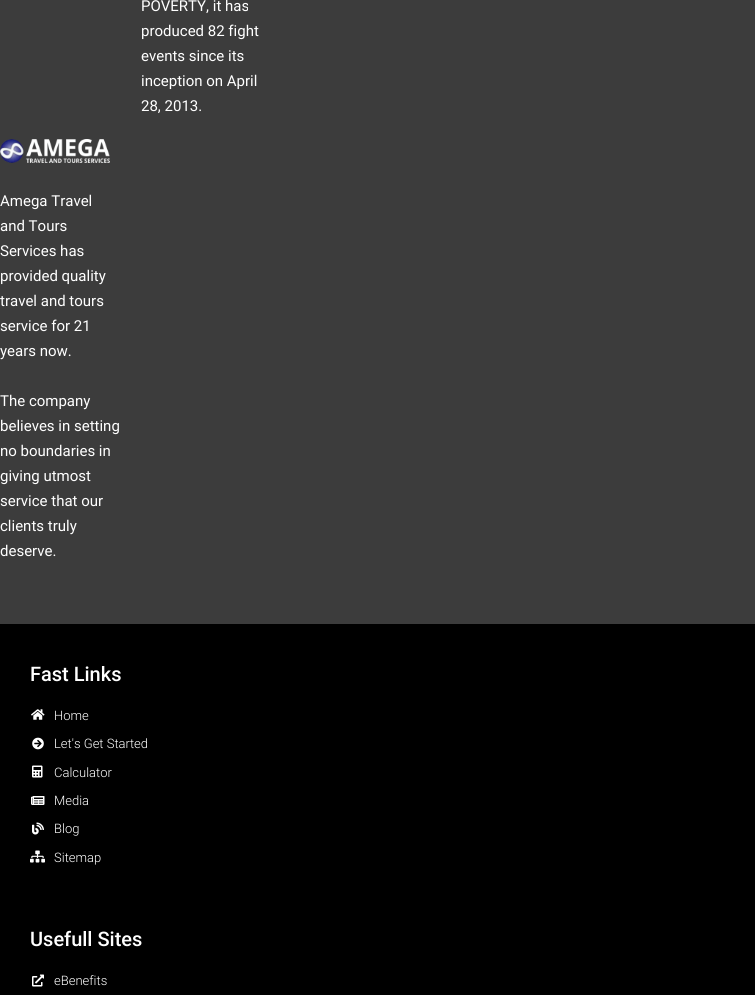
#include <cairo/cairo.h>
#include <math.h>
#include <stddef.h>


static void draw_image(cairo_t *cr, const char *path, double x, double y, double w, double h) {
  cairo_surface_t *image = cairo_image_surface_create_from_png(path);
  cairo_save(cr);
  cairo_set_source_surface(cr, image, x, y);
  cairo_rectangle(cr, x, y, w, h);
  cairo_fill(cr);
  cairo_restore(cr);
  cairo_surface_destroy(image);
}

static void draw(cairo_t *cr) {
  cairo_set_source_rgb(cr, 60 / 255.0, 60 / 255.0, 60 / 255.0);
  cairo_paint(cr);
  draw_image(cr, "images/1.png", 0, 139, 110, 24);
  cairo_set_source_rgb(cr, 0, 0, 0);
  cairo_rectangle(cr, 0, 624, 755, 371);
  cairo_fill(cr);
  draw_image(cr, "images/2.png", 31, 709, 14, 11);
  draw_image(cr, "images/3.png", 32, 737, 12, 13);
  draw_image(cr, "images/4.png", 32, 765, 11, 13);
  draw_image(cr, "images/5.png", 31, 796, 14, 9);
  draw_image(cr, "images/6.png", 32, 822, 12, 13);
  draw_image(cr, "images/7.png", 30, 850, 15, 13);
  draw_image(cr, "images/8.png", 32, 974, 12, 13);
  cairo_select_font_face(cr, "Roboto", CAIRO_FONT_SLANT_NORMAL, CAIRO_FONT_WEIGHT_NORMAL);
  cairo_set_font_size(cr, 15);
  cairo_set_source_rgb(cr, 1, 1, 1);
  cairo_move_to(cr, 141, 11);
  cairo_show_text(cr, "POVERTY, it has");
  cairo_move_to(cr, 141, 36);
  cairo_show_text(cr, "produced 82 fight");
  cairo_move_to(cr, 141, 61);
  cairo_show_text(cr, "events since its");
  cairo_move_to(cr, 141, 86);
  cairo_show_text(cr, "inception on April");
  cairo_move_to(cr, 141, 111);
  cairo_show_text(cr, "28, 2013.");
  cairo_move_to(cr, 0, 206);
  cairo_show_text(cr, "Amega Travel");
  cairo_move_to(cr, 0, 231);
  cairo_show_text(cr, "and Tours");
  cairo_move_to(cr, 0, 256);
  cairo_show_text(cr, "Services has");
  cairo_move_to(cr, 0, 281);
  cairo_show_text(cr, "provided quality");
  cairo_move_to(cr, 0, 306);
  cairo_show_text(cr, "travel and tours");
  cairo_move_to(cr, 0, 331);
  cairo_show_text(cr, "service for 21");
  cairo_move_to(cr, 0, 356);
  cairo_show_text(cr, "years now.");
  cairo_move_to(cr, 0, 406);
  cairo_show_text(cr, "The company");
  cairo_move_to(cr, 0, 431);
  cairo_show_text(cr, "believes in setting");
  cairo_move_to(cr, 0, 456);
  cairo_show_text(cr, "no boundaries in");
  cairo_move_to(cr, 0, 481);
  cairo_show_text(cr, "giving utmost");
  cairo_move_to(cr, 0, 506);
  cairo_show_text(cr, "service that our");
  cairo_move_to(cr, 0, 531);
  cairo_show_text(cr, "clients truly");
  cairo_move_to(cr, 0, 556);
  cairo_show_text(cr, "deserve.");
  cairo_select_font_face(cr, "Roboto Medium", CAIRO_FONT_SLANT_NORMAL, CAIRO_FONT_WEIGHT_NORMAL);
  cairo_set_font_size(cr, 20);
  cairo_move_to(cr, 30, 681);
  cairo_show_text(cr, "Fast Links");
  cairo_select_font_face(cr, "Roboto Light", CAIRO_FONT_SLANT_NORMAL, CAIRO_FONT_WEIGHT_NORMAL);
  cairo_set_font_size(cr, 13);
  cairo_move_to(cr, 54, 720);
  cairo_show_text(cr, "Home");
  cairo_move_to(cr, 54, 748);
  cairo_show_text(cr, "Let's Get Started");
  cairo_move_to(cr, 54, 777);
  cairo_show_text(cr, "Calculator");
  cairo_move_to(cr, 54, 805);
  cairo_show_text(cr, "Media");
  cairo_move_to(cr, 54, 833);
  cairo_show_text(cr, "Blog");
  cairo_move_to(cr, 54, 862);
  cairo_show_text(cr, "Sitemap");
  cairo_select_font_face(cr, "Roboto Medium", CAIRO_FONT_SLANT_NORMAL, CAIRO_FONT_WEIGHT_NORMAL);
  cairo_set_font_size(cr, 20);
  cairo_move_to(cr, 30, 946);
  cairo_show_text(cr, "Usefull Sites");
  cairo_select_font_face(cr, "Roboto Light", CAIRO_FONT_SLANT_NORMAL, CAIRO_FONT_WEIGHT_NORMAL);
  cairo_set_font_size(cr, 13);
  cairo_move_to(cr, 54, 985);
  cairo_show_text(cr, "eBenefits");
}

int main(void) {
  cairo_surface_t *surface = cairo_image_surface_create(CAIRO_FORMAT_RGB24, 755, 995);
  cairo_t *cr = cairo_create(surface);
  cairo_font_options_t *options = cairo_font_options_create();
  cairo_font_options_set_hint_metrics(options, CAIRO_HINT_METRICS_OFF);
  cairo_font_options_set_hint_style(options, CAIRO_HINT_STYLE_NONE);
  cairo_set_font_options(cr, options);
  cairo_set_miter_limit(cr, 4);
  draw(cr);
  cairo_surface_write_to_png(surface, "out.png");
  cairo_font_options_destroy(options);
  cairo_destroy(cr);
  cairo_surface_destroy(surface);
  return 0;
}
